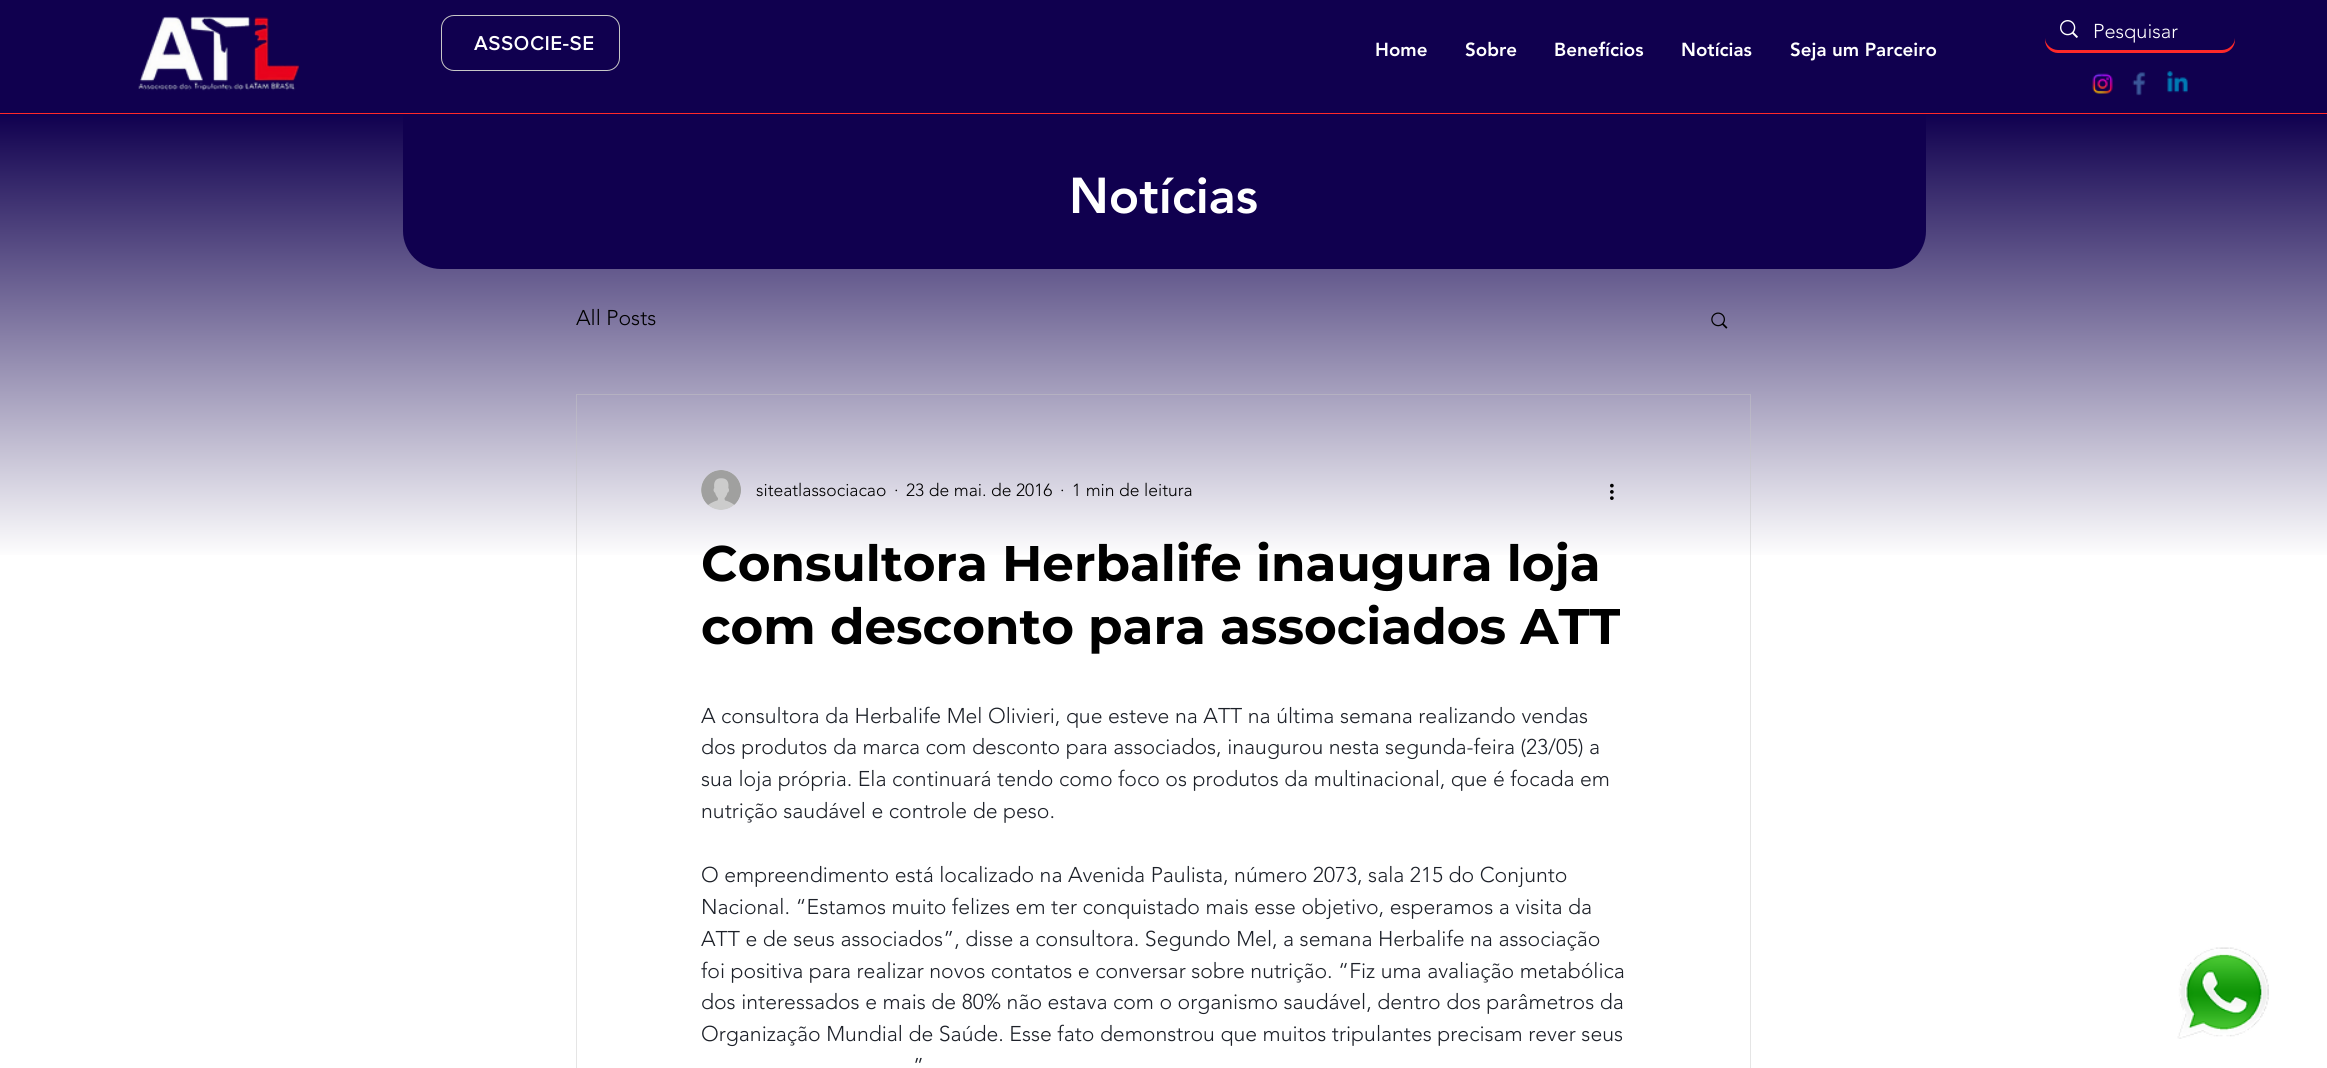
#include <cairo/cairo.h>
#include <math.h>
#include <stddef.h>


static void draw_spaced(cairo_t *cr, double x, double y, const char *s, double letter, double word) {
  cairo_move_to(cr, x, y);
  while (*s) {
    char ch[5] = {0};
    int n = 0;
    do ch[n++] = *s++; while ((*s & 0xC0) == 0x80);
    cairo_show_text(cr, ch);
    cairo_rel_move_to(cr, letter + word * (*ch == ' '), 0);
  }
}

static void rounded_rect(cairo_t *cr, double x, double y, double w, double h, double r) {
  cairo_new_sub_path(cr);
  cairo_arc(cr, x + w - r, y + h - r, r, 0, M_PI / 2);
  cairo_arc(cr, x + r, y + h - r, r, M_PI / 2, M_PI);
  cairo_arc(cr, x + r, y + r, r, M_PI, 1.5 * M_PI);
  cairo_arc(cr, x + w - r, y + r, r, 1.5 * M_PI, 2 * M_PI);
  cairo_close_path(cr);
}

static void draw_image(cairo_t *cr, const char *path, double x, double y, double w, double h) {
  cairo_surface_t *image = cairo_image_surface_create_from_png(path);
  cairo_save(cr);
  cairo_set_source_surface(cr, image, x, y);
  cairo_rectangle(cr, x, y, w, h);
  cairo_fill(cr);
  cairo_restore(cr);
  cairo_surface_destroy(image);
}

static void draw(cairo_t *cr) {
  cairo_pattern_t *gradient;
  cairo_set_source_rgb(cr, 1, 1, 1);
  cairo_paint(cr);
  cairo_set_source_rgb(cr, 1, 41 / 255.0, 41 / 255.0);
  cairo_rectangle(cr, 0, 113, 2327, 1);
  cairo_fill(cr);
  cairo_set_source_rgb(cr, 16 / 255.0, 0, 79 / 255.0);
  cairo_rectangle(cr, 0, 0, 2327, 113);
  cairo_fill(cr);
  draw_image(cr, "images/1.png", 138, 16, 162, 75);
  rounded_rect(cr, 441.5, 15.5, 178, 55, 12.5);
  cairo_set_source_rgb(cr, 199 / 255.0, 199 / 255.0, 199 / 255.0);
  cairo_set_line_width(cr, 1);
  cairo_stroke(cr);
  cairo_set_source_rgb(cr, 1, 41 / 255.0, 41 / 255.0);
  cairo_new_path(cr);
  cairo_move_to(cr, 2045, 38);
  cairo_line_to(cr, 2045, 40);
  cairo_curve_to(cr, 2045, 47, 2051, 53, 2058, 53);
  cairo_line_to(cr, 2222, 53);
  cairo_curve_to(cr, 2229, 53, 2235, 47, 2235, 40);
  cairo_line_to(cr, 2235, 38);
  cairo_curve_to(cr, 2235, 44, 2229, 50, 2222, 50);
  cairo_line_to(cr, 2058, 50);
  cairo_curve_to(cr, 2051, 50, 2045, 44, 2045, 38);
  cairo_close_path(cr);
  cairo_fill(cr);
  draw_image(cr, "images/2.png", 2060, 20, 18, 18);
  draw_image(cr, "images/3.png", 2092, 73, 21, 21);
  draw_image(cr, "images/4.png", 2132, 72, 14, 24);
  draw_image(cr, "images/5.png", 2167, 71, 21, 22);
  gradient = cairo_pattern_create_linear(1164, 114, 1164, 559);
  cairo_pattern_add_color_stop_rgba(gradient, 0, 16 / 255.0, 0, 79 / 255.0, 1);
  cairo_pattern_add_color_stop_rgba(gradient, 1, 1, 1, 1, 1);
  cairo_set_source(cr, gradient);
  cairo_pattern_destroy(gradient);
  cairo_rectangle(cr, 0, 114, 2327, 441);
  cairo_fill(cr);
  cairo_set_source_rgb(cr, 16 / 255.0, 0, 79 / 255.0);
  cairo_new_path(cr);
  cairo_move_to(cr, 403, 114);
  cairo_line_to(cr, 1926, 114);
  cairo_line_to(cr, 1926, 231);
  cairo_curve_to(cr, 1926, 252, 1909, 269, 1888, 269);
  cairo_line_to(cr, 441, 269);
  cairo_curve_to(cr, 420, 269, 403, 252, 403, 231);
  cairo_close_path(cr);
  cairo_fill(cr);
  draw_image(cr, "images/6.png", 1711, 312, 17, 17);
  cairo_rectangle(cr, 576.5, 394.5, 1174, 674);
  cairo_set_source_rgba(cr, 199 / 255.0, 199 / 255.0, 199 / 255.0, 0.45);
  cairo_stroke(cr);
  draw_image(cr, "images/7.png", 701, 470, 40, 40);
  draw_image(cr, "images/8.png", 1610, 483, 4, 17);
  draw_image(cr, "images/9.png", 2177, 947, 92, 92);
  cairo_select_font_face(cr, "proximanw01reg", CAIRO_FONT_SLANT_NORMAL, CAIRO_FONT_WEIGHT_BOLD);
  cairo_set_font_size(cr, 20);
  cairo_set_source_rgb(cr, 1, 1, 1);
  draw_spaced(cr, 474, 50, "ASSOCIE-SE", 1, 0);
  cairo_select_font_face(cr, "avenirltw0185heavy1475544 Black", CAIRO_FONT_SLANT_NORMAL, CAIRO_FONT_WEIGHT_NORMAL);
  cairo_set_font_size(cr, 18.75);
  cairo_move_to(cr, 1375, 56);
  cairo_show_text(cr, "Home");
  cairo_move_to(cr, 1465, 56);
  cairo_show_text(cr, "Sobre");
  cairo_move_to(cr, 1554, 56);
  cairo_show_text(cr, "Benefícios");
  cairo_move_to(cr, 1681, 56);
  cairo_show_text(cr, "Notícias");
  cairo_move_to(cr, 1790, 56);
  cairo_show_text(cr, "Seja um Parceiro");
  cairo_select_font_face(cr, "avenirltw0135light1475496 Light", CAIRO_FONT_SLANT_NORMAL, CAIRO_FONT_WEIGHT_NORMAL);
  cairo_set_font_size(cr, 20);
  cairo_move_to(cr, 2093, 38);
  cairo_show_text(cr, "Pesquisar");
  cairo_select_font_face(cr, "avenirltw0185heavy1475544 Black", CAIRO_FONT_SLANT_NORMAL, CAIRO_FONT_WEIGHT_NORMAL);
  cairo_set_font_size(cr, 50);
  cairo_move_to(cr, 1069, 213);
  cairo_show_text(cr, "Notícias");
  cairo_select_font_face(cr, "avenirltw0135light1475496 Light", CAIRO_FONT_SLANT_NORMAL, CAIRO_FONT_WEIGHT_NORMAL);
  cairo_set_font_size(cr, 21.25);
  cairo_set_source_rgb(cr, 0, 0, 0);
  cairo_move_to(cr, 576, 325);
  cairo_show_text(cr, "All Posts");
  cairo_set_font_size(cr, 17.5);
  cairo_move_to(cr, 756, 496);
  cairo_show_text(cr, "siteatlassociacao");
  cairo_move_to(cr, 894, 496);
  cairo_show_text(cr, "·");
  cairo_move_to(cr, 906, 496);
  cairo_show_text(cr, "23 de mai. de 2016");
  cairo_move_to(cr, 1060, 496);
  cairo_show_text(cr, "·");
  cairo_move_to(cr, 1072, 496);
  cairo_show_text(cr, "1 min de leitura");
  cairo_select_font_face(cr, "Montserrat", CAIRO_FONT_SLANT_NORMAL, CAIRO_FONT_WEIGHT_BOLD);
  cairo_set_font_size(cr, 50);
  cairo_move_to(cr, 701, 581);
  cairo_show_text(cr, "Consultora Herbalife inaugura loja");
  cairo_move_to(cr, 701, 644);
  cairo_show_text(cr, "com desconto para associados ATT");
  cairo_select_font_face(cr, "avenirltw0135light1475496 Light", CAIRO_FONT_SLANT_NORMAL, CAIRO_FONT_WEIGHT_NORMAL);
  cairo_set_font_size(cr, 21.25);
  cairo_set_source_rgb(cr, 29 / 255.0, 33 / 255.0, 41 / 255.0);
  cairo_move_to(cr, 701, 723);
  cairo_show_text(cr, "A consultora da Herbalife Mel Olivieri, que esteve na ATT na última semana realizando vendas");
  cairo_move_to(cr, 701, 754);
  cairo_show_text(cr, "dos produtos da marca com desconto para associados, inaugurou nesta segunda-feira (23/05) a");
  cairo_move_to(cr, 701, 786);
  cairo_show_text(cr, "sua loja própria. Ela continuará tendo como foco os produtos da multinacional, que é focada em");
  cairo_move_to(cr, 701, 818);
  cairo_show_text(cr, "nutrição saudável e controle de peso.");
  cairo_move_to(cr, 701, 882);
  cairo_show_text(cr, "O empreendimento está localizado na Avenida Paulista, número 2073, sala 215 do Conjunto");
  cairo_move_to(cr, 701, 914);
  cairo_show_text(cr, "Nacional. “Estamos muito felizes em ter conquistado mais esse objetivo, esperamos a visita da");
  cairo_move_to(cr, 701, 946);
  cairo_show_text(cr, "ATT e de seus associados”, disse a consultora. Segundo Mel, a semana Herbalife na associação");
  cairo_move_to(cr, 701, 978);
  cairo_show_text(cr, "foi positiva para realizar novos contatos e conversar sobre nutrição. “Fiz uma avaliação metabólica");
  cairo_move_to(cr, 701, 1009);
  cairo_show_text(cr, "dos interessados e mais de 80% não estava com o organismo saudável, dentro dos parâmetros da");
  cairo_move_to(cr, 701, 1041);
  cairo_show_text(cr, "Organização Mundial de Saúde. Esse fato demonstrou que muitos tripulantes precisam rever seus");
  cairo_move_to(cr, 913, 1073);
  cairo_show_text(cr, "”");
}

int main(void) {
  cairo_surface_t *surface = cairo_image_surface_create(CAIRO_FORMAT_RGB24, 2327, 1068);
  cairo_t *cr = cairo_create(surface);
  cairo_font_options_t *options = cairo_font_options_create();
  cairo_font_options_set_hint_metrics(options, CAIRO_HINT_METRICS_OFF);
  cairo_font_options_set_hint_style(options, CAIRO_HINT_STYLE_NONE);
  cairo_set_font_options(cr, options);
  cairo_set_miter_limit(cr, 4);
  draw(cr);
  cairo_surface_write_to_png(surface, "out.png");
  cairo_font_options_destroy(options);
  cairo_destroy(cr);
  cairo_surface_destroy(surface);
  return 0;
}
